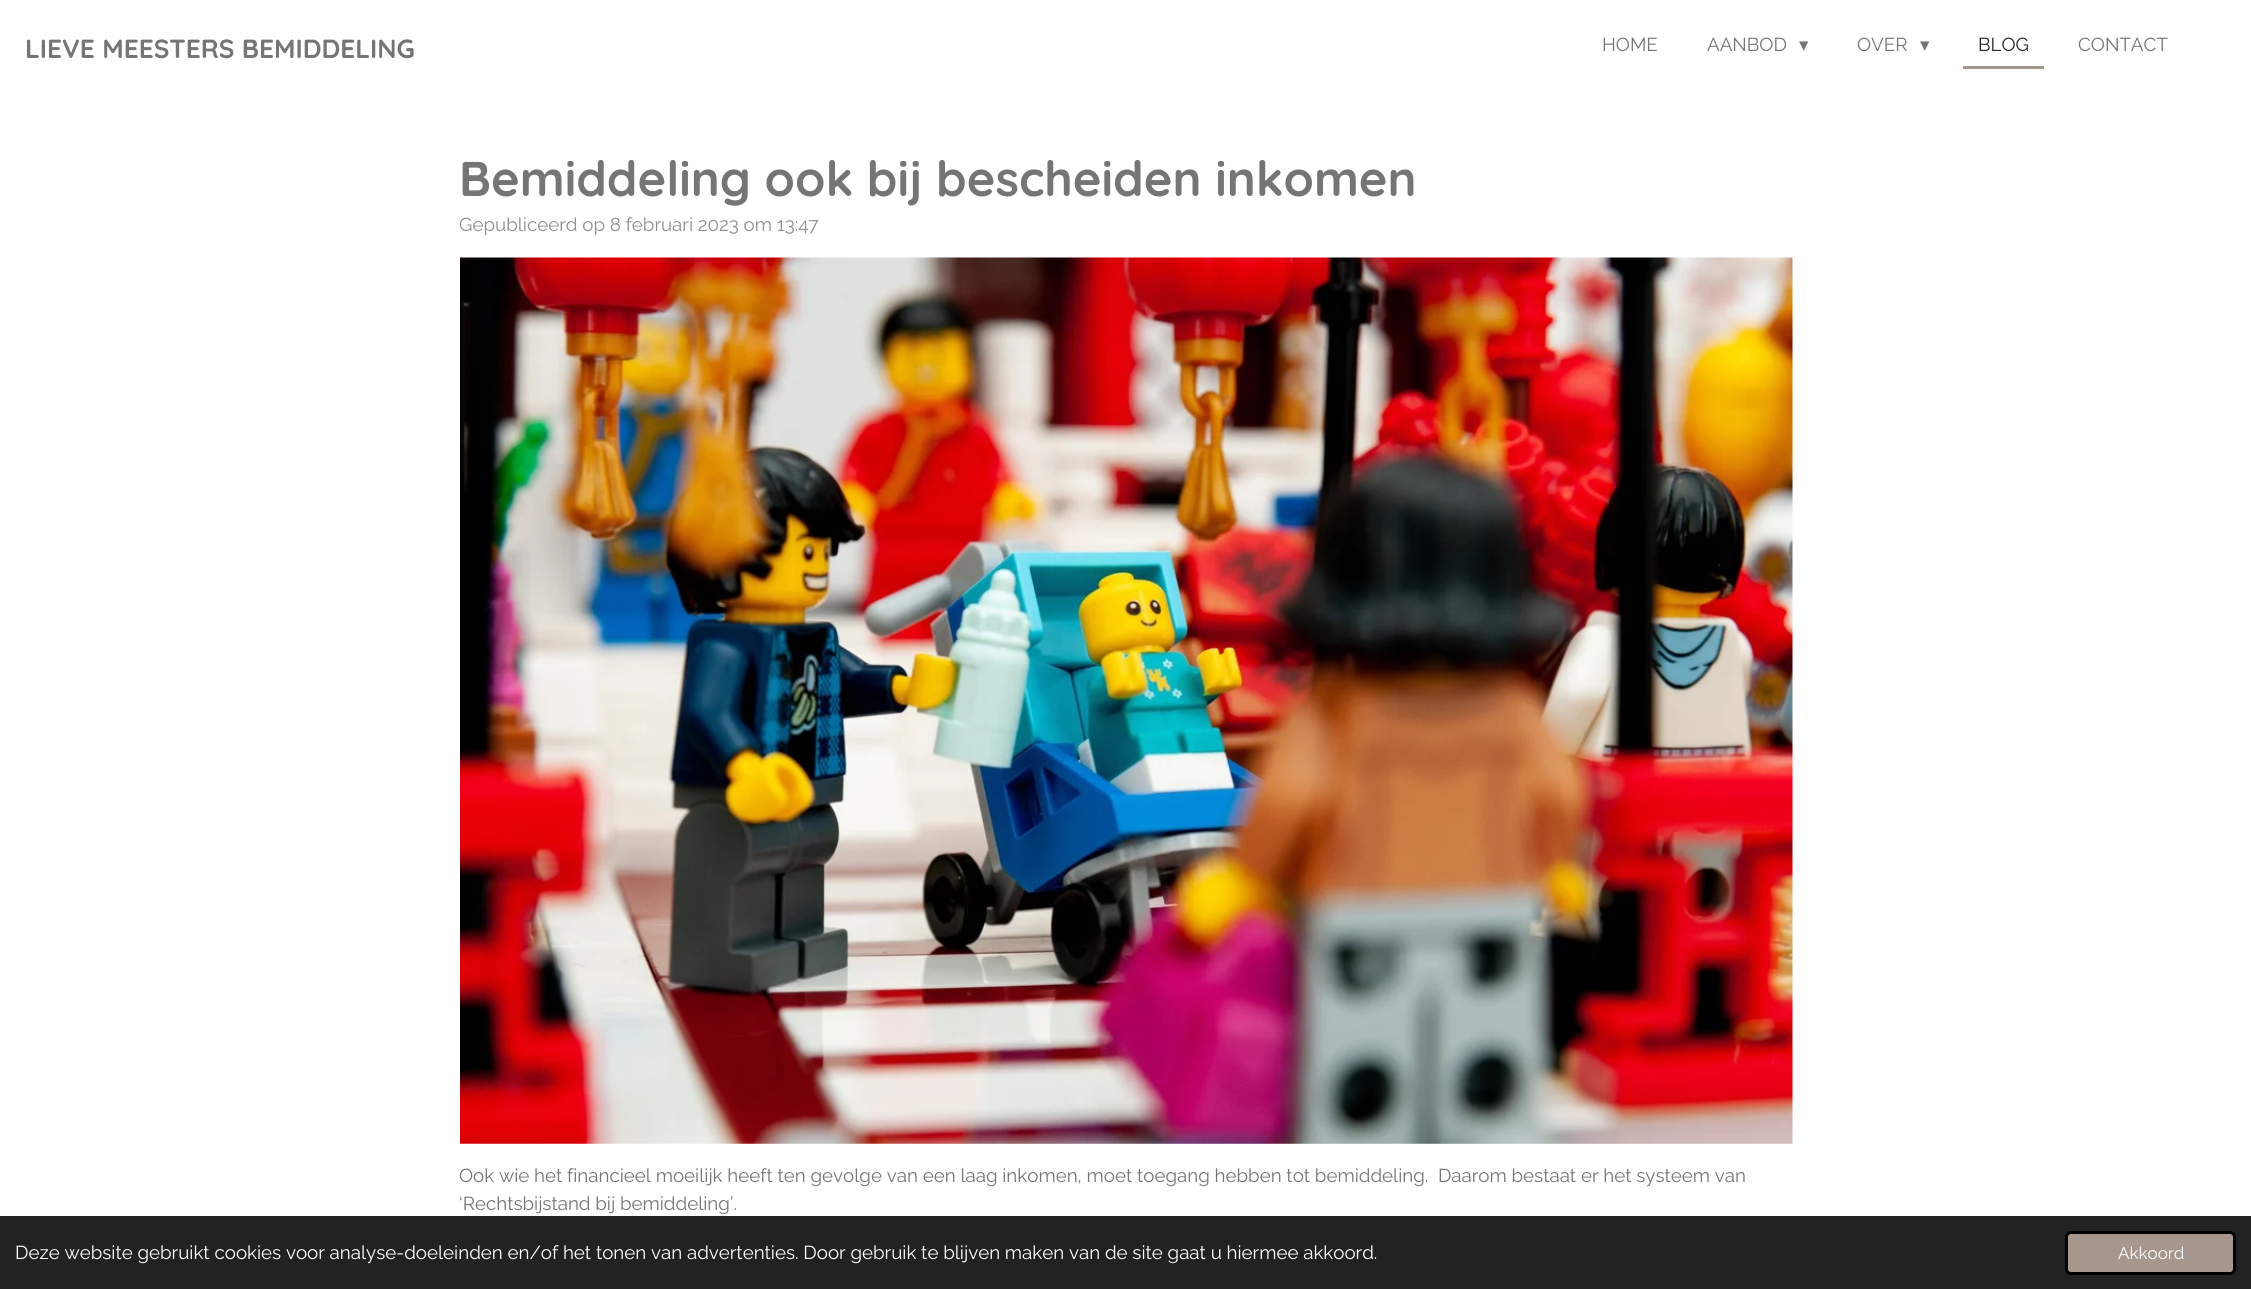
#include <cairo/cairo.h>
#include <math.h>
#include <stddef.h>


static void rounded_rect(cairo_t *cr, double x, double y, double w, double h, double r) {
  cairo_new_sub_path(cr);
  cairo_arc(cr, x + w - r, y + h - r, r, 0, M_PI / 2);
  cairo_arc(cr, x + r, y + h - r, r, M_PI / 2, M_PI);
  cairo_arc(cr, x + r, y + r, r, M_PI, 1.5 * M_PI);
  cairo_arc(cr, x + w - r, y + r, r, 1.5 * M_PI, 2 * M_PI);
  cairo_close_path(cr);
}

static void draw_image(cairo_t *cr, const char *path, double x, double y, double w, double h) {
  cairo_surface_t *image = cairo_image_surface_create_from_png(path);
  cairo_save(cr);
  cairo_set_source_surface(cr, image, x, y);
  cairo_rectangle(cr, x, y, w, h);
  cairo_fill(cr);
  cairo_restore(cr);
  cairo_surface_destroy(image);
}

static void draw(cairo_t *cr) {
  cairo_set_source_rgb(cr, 1, 1, 1);
  cairo_paint(cr);
  cairo_set_source_rgb(cr, 167 / 255.0, 150 / 255.0, 139 / 255.0);
  cairo_new_path(cr);
  cairo_move_to(cr, 1963, 66);
  cairo_line_to(cr, 1963, 69);
  cairo_line_to(cr, 2044, 69);
  cairo_line_to(cr, 2044, 28);
  cairo_line_to(cr, 2044, 66);
  cairo_close_path(cr);
  cairo_fill(cr);
  draw_image(cr, "images/1.png", 460, 257, 1333, 887);
  cairo_set_source_rgb(cr, 34 / 255.0, 34 / 255.0, 34 / 255.0);
  cairo_rectangle(cr, 0, 1216, 2251, 73);
  cairo_fill(cr);
  cairo_set_source_rgb(cr, 167 / 255.0, 150 / 255.0, 139 / 255.0);
  rounded_rect(cr, 2066.5, 1232.5, 168, 41, 4.5);
  cairo_fill_preserve(cr);
  cairo_set_source_rgb(cr, 0, 0, 0);
  cairo_set_line_width(cr, 3);
  cairo_stroke(cr);
  cairo_select_font_face(cr, "Quicksand", CAIRO_FONT_SLANT_NORMAL, CAIRO_FONT_WEIGHT_BOLD);
  cairo_set_font_size(cr, 26.25);
  cairo_set_source_rgb(cr, 117 / 255.0, 117 / 255.0, 117 / 255.0);
  cairo_move_to(cr, 25, 58);
  cairo_show_text(cr, "LIEVE MEESTERS BEMIDDELING");
  cairo_select_font_face(cr, "Raleway", CAIRO_FONT_SLANT_NORMAL, CAIRO_FONT_WEIGHT_NORMAL);
  cairo_set_font_size(cr, 18.75);
  cairo_move_to(cr, 1602, 51);
  cairo_show_text(cr, "HOME");
  cairo_move_to(cr, 1707, 51);
  cairo_show_text(cr, "AANBOD");
  cairo_select_font_face(cr, "DejaVu Sans", CAIRO_FONT_SLANT_NORMAL, CAIRO_FONT_WEIGHT_NORMAL);
  cairo_move_to(cr, 1799, 51);
  cairo_show_text(cr, "▾");
  cairo_select_font_face(cr, "Raleway", CAIRO_FONT_SLANT_NORMAL, CAIRO_FONT_WEIGHT_NORMAL);
  cairo_move_to(cr, 1857, 51);
  cairo_show_text(cr, "OVER");
  cairo_select_font_face(cr, "DejaVu Sans", CAIRO_FONT_SLANT_NORMAL, CAIRO_FONT_WEIGHT_NORMAL);
  cairo_move_to(cr, 1920, 51);
  cairo_show_text(cr, "▾");
  cairo_select_font_face(cr, "Raleway", CAIRO_FONT_SLANT_NORMAL, CAIRO_FONT_WEIGHT_NORMAL);
  cairo_set_source_rgb(cr, 38 / 255.0, 38 / 255.0, 38 / 255.0);
  cairo_move_to(cr, 1978, 51);
  cairo_show_text(cr, "BLOG");
  cairo_set_source_rgb(cr, 117 / 255.0, 117 / 255.0, 117 / 255.0);
  cairo_move_to(cr, 2078, 51);
  cairo_show_text(cr, "CONTACT");
  cairo_select_font_face(cr, "Quicksand", CAIRO_FONT_SLANT_NORMAL, CAIRO_FONT_WEIGHT_BOLD);
  cairo_set_font_size(cr, 48.75);
  cairo_move_to(cr, 459, 196);
  cairo_show_text(cr, "Bemiddeling ook bij bescheiden inkomen");
  cairo_select_font_face(cr, "Raleway", CAIRO_FONT_SLANT_NORMAL, CAIRO_FONT_WEIGHT_NORMAL);
  cairo_set_font_size(cr, 18.75);
  cairo_set_source_rgb(cr, 143 / 255.0, 143 / 255.0, 143 / 255.0);
  cairo_move_to(cr, 459, 231);
  cairo_show_text(cr, "Gepubliceerd op 8 februari 2023 om 13:47");
  cairo_set_source_rgb(cr, 117 / 255.0, 117 / 255.0, 117 / 255.0);
  cairo_move_to(cr, 459, 1182);
  cairo_show_text(cr, "Ook wie het financieel moeilijk heeft ten gevolge van een laag inkomen, moet toegang hebben tot bemiddeling.  Daarom bestaat er het systeem van");
  cairo_move_to(cr, 459, 1210);
  cairo_show_text(cr, "‘Rechtsbijstand bij bemiddeling’.");
  cairo_set_source_rgb(cr, 1, 1, 1);
  cairo_move_to(cr, 15, 1259);
  cairo_show_text(cr, "Deze website gebruikt cookies voor analyse-doeleinden en/of het tonen van advertenties. Door gebruik te blijven maken van de site gaat u hiermee akkoord.");
  cairo_set_font_size(cr, 17);
  cairo_move_to(cr, 2118, 1259);
  cairo_show_text(cr, "Akkoord");
}

int main(void) {
  cairo_surface_t *surface = cairo_image_surface_create(CAIRO_FORMAT_RGB24, 2251, 1289);
  cairo_t *cr = cairo_create(surface);
  cairo_font_options_t *options = cairo_font_options_create();
  cairo_font_options_set_hint_metrics(options, CAIRO_HINT_METRICS_OFF);
  cairo_font_options_set_hint_style(options, CAIRO_HINT_STYLE_NONE);
  cairo_set_font_options(cr, options);
  cairo_set_miter_limit(cr, 4);
  draw(cr);
  cairo_surface_write_to_png(surface, "out.png");
  cairo_font_options_destroy(options);
  cairo_destroy(cr);
  cairo_surface_destroy(surface);
  return 0;
}
